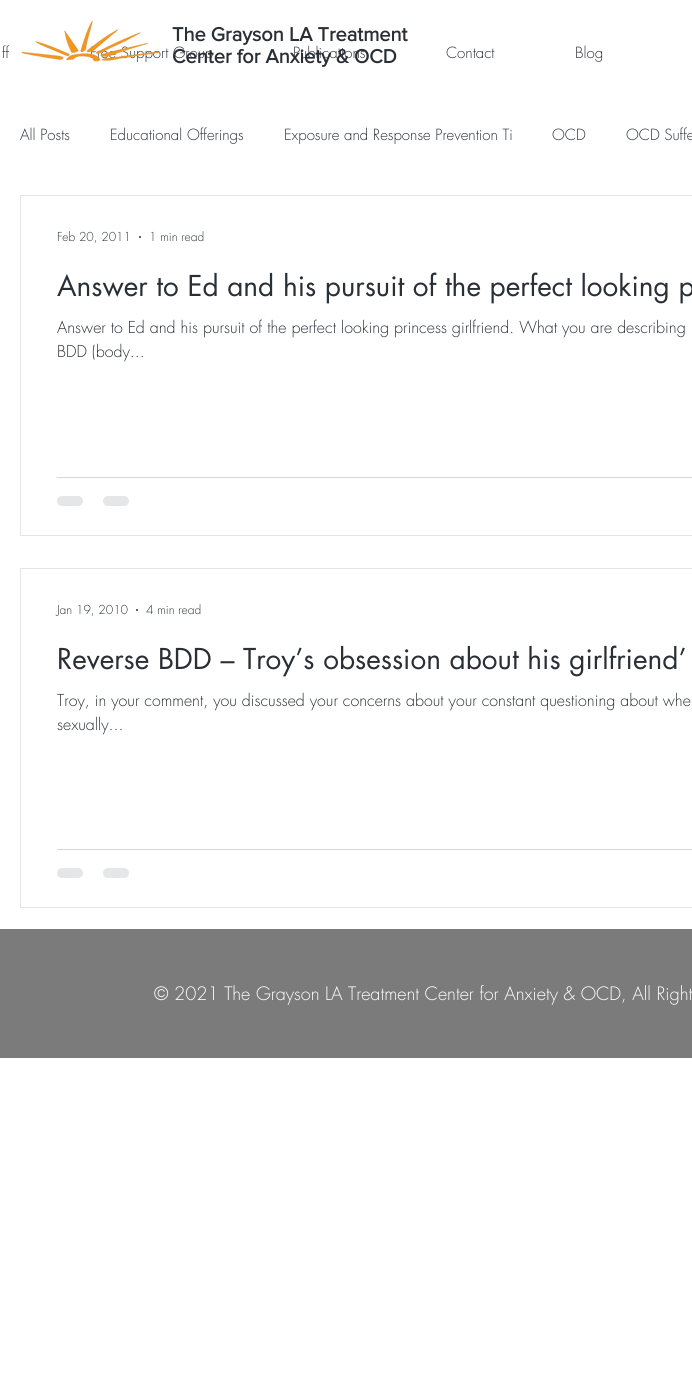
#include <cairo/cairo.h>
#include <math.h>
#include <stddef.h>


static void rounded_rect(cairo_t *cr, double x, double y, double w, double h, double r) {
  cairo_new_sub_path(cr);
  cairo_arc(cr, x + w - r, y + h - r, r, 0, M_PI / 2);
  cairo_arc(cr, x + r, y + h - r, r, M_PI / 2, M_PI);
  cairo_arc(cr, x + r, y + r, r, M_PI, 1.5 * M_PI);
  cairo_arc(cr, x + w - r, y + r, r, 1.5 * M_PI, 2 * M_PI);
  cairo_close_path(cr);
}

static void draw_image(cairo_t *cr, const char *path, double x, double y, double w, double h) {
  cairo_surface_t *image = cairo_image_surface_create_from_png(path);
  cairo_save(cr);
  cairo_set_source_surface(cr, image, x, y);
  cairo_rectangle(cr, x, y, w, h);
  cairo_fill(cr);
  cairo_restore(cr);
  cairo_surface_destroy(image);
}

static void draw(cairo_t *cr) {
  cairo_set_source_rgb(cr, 1, 1, 1);
  cairo_paint(cr);
  cairo_rectangle(cr, 20.5, 195.5, 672, 340);
  cairo_set_source_rgb(cr, 229 / 255.0, 229 / 255.0, 229 / 255.0);
  cairo_set_line_width(cr, 1);
  cairo_stroke(cr);
  cairo_set_source_rgb(cr, 42 / 255.0, 47 / 255.0, 54 / 255.0);
  cairo_arc(cr, 140, 237, 1, 0, 2 * M_PI);
  cairo_fill(cr);
  cairo_set_source_rgb(cr, 212 / 255.0, 213 / 255.0, 215 / 255.0);
  cairo_rectangle(cr, 57, 477, 635, 1);
  cairo_fill(cr);
  cairo_set_source_rgb(cr, 229 / 255.0, 230 / 255.0, 231 / 255.0);
  rounded_rect(cr, 57, 496, 26, 10, 5);
  cairo_fill(cr);
  rounded_rect(cr, 103, 496, 26, 10, 5);
  cairo_fill(cr);
  cairo_rectangle(cr, 20.5, 568.5, 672, 339);
  cairo_set_source_rgb(cr, 229 / 255.0, 229 / 255.0, 229 / 255.0);
  cairo_stroke(cr);
  cairo_set_source_rgb(cr, 42 / 255.0, 47 / 255.0, 54 / 255.0);
  cairo_arc(cr, 137, 610, 1, 0, 2 * M_PI);
  cairo_fill(cr);
  cairo_set_source_rgb(cr, 212 / 255.0, 213 / 255.0, 215 / 255.0);
  cairo_rectangle(cr, 57, 849, 635, 1);
  cairo_fill(cr);
  cairo_set_source_rgb(cr, 229 / 255.0, 230 / 255.0, 231 / 255.0);
  rounded_rect(cr, 57, 868, 26, 10, 5);
  cairo_fill(cr);
  rounded_rect(cr, 103, 868, 26, 10, 5);
  cairo_fill(cr);
  cairo_set_source_rgb(cr, 123 / 255.0, 123 / 255.0, 123 / 255.0);
  cairo_rectangle(cr, 0, 929, 692, 129);
  cairo_fill(cr);
  cairo_select_font_face(cr, "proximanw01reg", CAIRO_FONT_SLANT_NORMAL, CAIRO_FONT_WEIGHT_BOLD);
  cairo_set_font_size(cr, 20);
  cairo_set_source_rgb(cr, 42 / 255.0, 47 / 255.0, 54 / 255.0);
  cairo_move_to(cr, 172, 41);
  cairo_show_text(cr, "The Grayson LA Treatment");
  cairo_select_font_face(cr, "futura Light", CAIRO_FONT_SLANT_NORMAL, CAIRO_FONT_WEIGHT_NORMAL);
  cairo_set_font_size(cr, 15);
  cairo_move_to(cr, 2, 58);
  cairo_show_text(cr, "ff");
  cairo_move_to(cr, 90, 58);
  cairo_show_text(cr, "Free Support Group");
  draw_image(cr, "images/1.png", 21, 20, 140, 42);
  cairo_move_to(cr, 293, 58);
  cairo_show_text(cr, "Publications");
  cairo_select_font_face(cr, "proximanw01reg", CAIRO_FONT_SLANT_NORMAL, CAIRO_FONT_WEIGHT_BOLD);
  cairo_set_font_size(cr, 20);
  cairo_move_to(cr, 172, 63);
  cairo_show_text(cr, "Center for Anxiety & OCD");
  cairo_select_font_face(cr, "futura Light", CAIRO_FONT_SLANT_NORMAL, CAIRO_FONT_WEIGHT_NORMAL);
  cairo_set_font_size(cr, 15);
  cairo_move_to(cr, 446, 58);
  cairo_show_text(cr, "Contact");
  cairo_move_to(cr, 575, 58);
  cairo_show_text(cr, "Blog");
  cairo_move_to(cr, 20, 140);
  cairo_show_text(cr, "All Posts");
  cairo_move_to(cr, 110, 140);
  cairo_show_text(cr, "Educational Offerings");
  cairo_move_to(cr, 284, 140);
  cairo_show_text(cr, "Exposure and Response Prevention Ti");
  cairo_move_to(cr, 552, 140);
  cairo_show_text(cr, "OCD");
  cairo_move_to(cr, 626, 140);
  cairo_show_text(cr, "OCD Suffe");
  cairo_set_font_size(cr, 12);
  cairo_move_to(cr, 57, 241);
  cairo_show_text(cr, "Feb 20, 2011");
  cairo_move_to(cr, 149, 241);
  cairo_show_text(cr, "1 min read");
  cairo_select_font_face(cr, "futura", CAIRO_FONT_SLANT_NORMAL, CAIRO_FONT_WEIGHT_NORMAL);
  cairo_set_font_size(cr, 28);
  cairo_move_to(cr, 57, 296);
  cairo_show_text(cr, "Answer to Ed and his pursuit of the perfect looking p");
  cairo_select_font_face(cr, "futura Light", CAIRO_FONT_SLANT_NORMAL, CAIRO_FONT_WEIGHT_NORMAL);
  cairo_set_font_size(cr, 16);
  cairo_move_to(cr, 57, 333);
  cairo_show_text(cr, "Answer to Ed and his pursuit of the perfect looking princess girlfriend. What you are describing");
  cairo_move_to(cr, 57, 357);
  cairo_show_text(cr, "BDD (body...");
  cairo_set_font_size(cr, 12);
  cairo_move_to(cr, 57, 614);
  cairo_show_text(cr, "Jan 19, 2010");
  cairo_move_to(cr, 146, 614);
  cairo_show_text(cr, "4 min read");
  cairo_select_font_face(cr, "futura", CAIRO_FONT_SLANT_NORMAL, CAIRO_FONT_WEIGHT_NORMAL);
  cairo_set_font_size(cr, 28);
  cairo_move_to(cr, 57, 669);
  cairo_show_text(cr, "Reverse BDD – Troy’s obsession about his girlfriend’");
  cairo_select_font_face(cr, "futura Light", CAIRO_FONT_SLANT_NORMAL, CAIRO_FONT_WEIGHT_NORMAL);
  cairo_set_font_size(cr, 16);
  cairo_move_to(cr, 57, 706);
  cairo_show_text(cr, "Troy, in your comment, you discussed your concerns about your constant questioning about whe");
  cairo_move_to(cr, 57, 730);
  cairo_show_text(cr, "sexually...");
  cairo_set_font_size(cr, 18);
  cairo_set_source_rgb(cr, 1, 1, 1);
  cairo_move_to(cr, 154, 1000);
  cairo_show_text(cr, "© 2021 The Grayson LA Treatment Center for Anxiety & OCD, All Right");
}

int main(void) {
  cairo_surface_t *surface = cairo_image_surface_create(CAIRO_FORMAT_RGB24, 692, 1397);
  cairo_t *cr = cairo_create(surface);
  cairo_font_options_t *options = cairo_font_options_create();
  cairo_font_options_set_hint_metrics(options, CAIRO_HINT_METRICS_OFF);
  cairo_font_options_set_hint_style(options, CAIRO_HINT_STYLE_NONE);
  cairo_set_font_options(cr, options);
  cairo_set_miter_limit(cr, 4);
  draw(cr);
  cairo_surface_write_to_png(surface, "out.png");
  cairo_font_options_destroy(options);
  cairo_destroy(cr);
  cairo_surface_destroy(surface);
  return 0;
}
